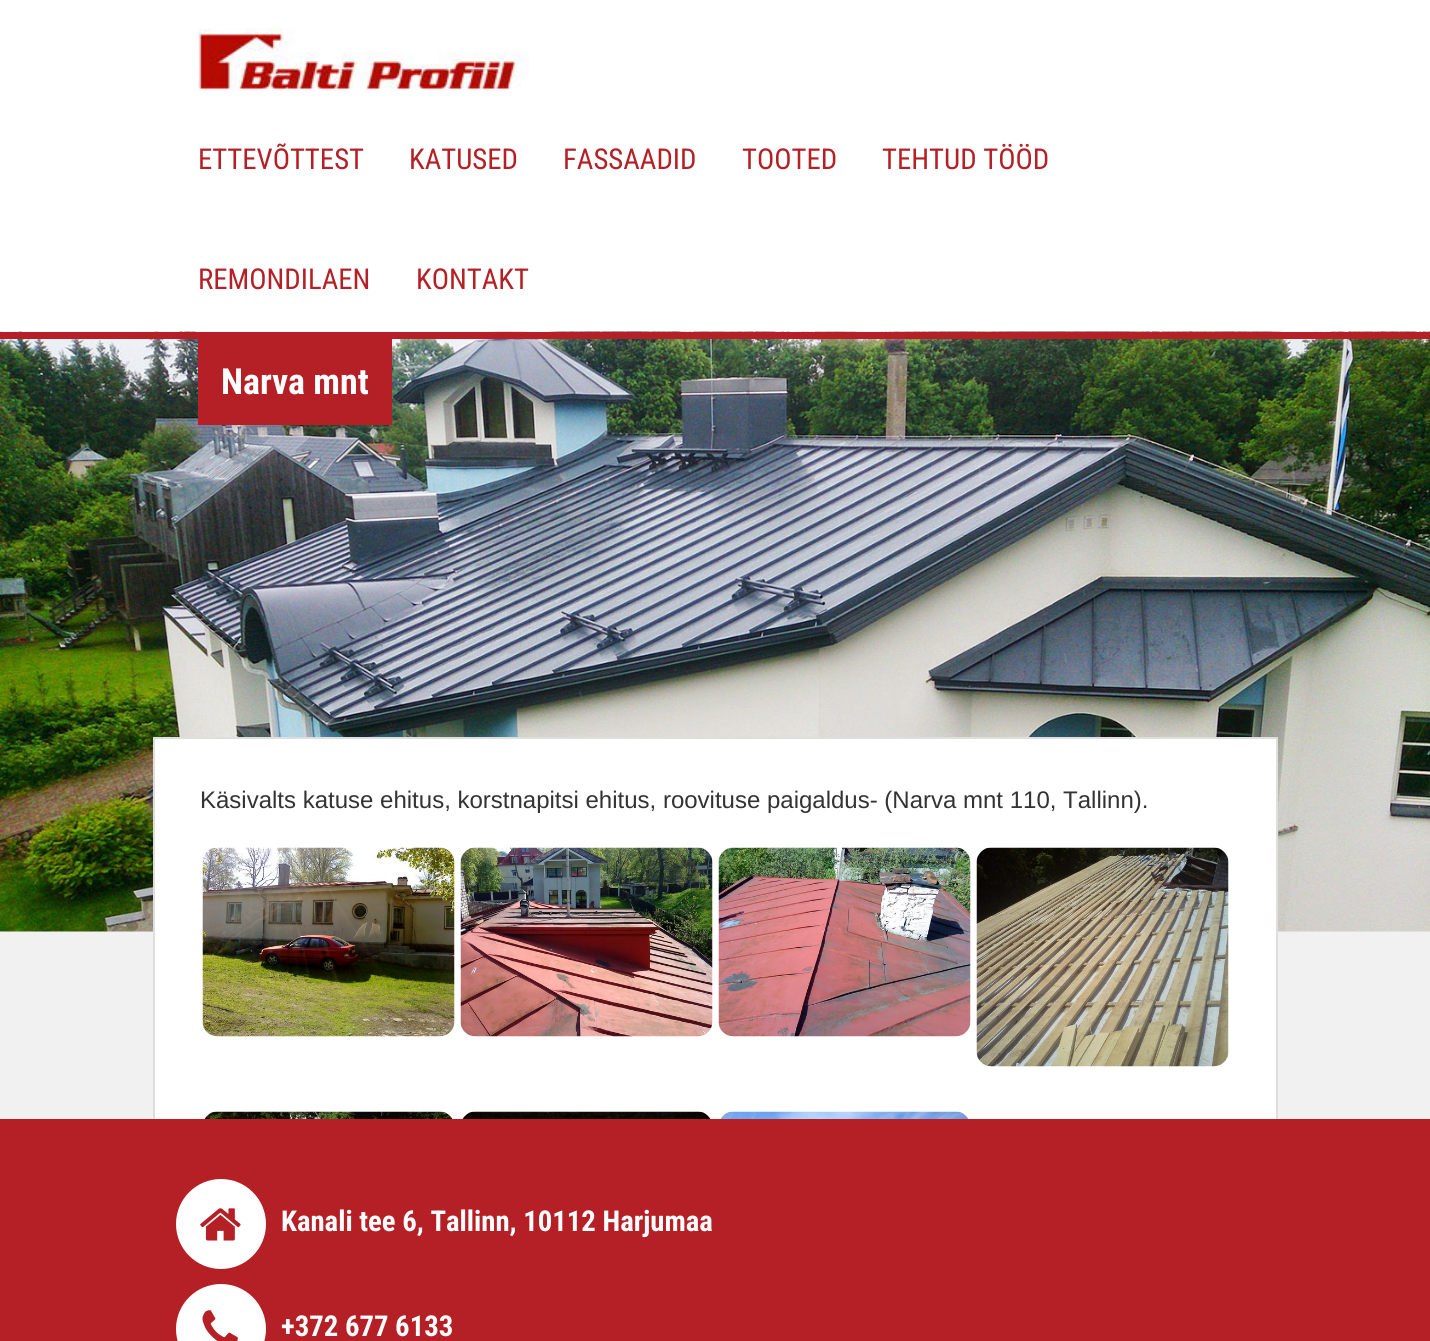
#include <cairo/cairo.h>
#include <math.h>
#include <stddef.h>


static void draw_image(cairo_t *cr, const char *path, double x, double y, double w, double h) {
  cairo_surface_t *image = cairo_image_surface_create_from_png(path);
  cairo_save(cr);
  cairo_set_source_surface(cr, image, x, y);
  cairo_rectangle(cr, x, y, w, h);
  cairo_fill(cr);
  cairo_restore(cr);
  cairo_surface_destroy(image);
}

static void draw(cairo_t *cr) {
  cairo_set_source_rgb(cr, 241 / 255.0, 241 / 255.0, 241 / 255.0);
  cairo_paint(cr);
  cairo_set_source_rgb(cr, 1, 1, 1);
  cairo_rectangle(cr, 0, 0, 1430, 332);
  cairo_fill(cr);
  draw_image(cr, "images/1.png", 198, 28, 331, 64);
  draw_image(cr, "images/2.png", 0, 331, 1430, 601);
  cairo_set_source_rgb(cr, 180 / 255.0, 32 / 255.0, 37 / 255.0);
  cairo_rectangle(cr, 0, 332, 1430, 7);
  cairo_fill(cr);
  cairo_rectangle(cr, 198, 339, 194, 86);
  cairo_fill(cr);
  cairo_set_source_rgb(cr, 1, 1, 1);
  cairo_rectangle(cr, 155, 739, 1121, 380);
  cairo_fill(cr);
  cairo_rectangle(cr, 154, 738, 1123, 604);
  cairo_set_source_rgb(cr, 222 / 255.0, 222 / 255.0, 222 / 255.0);
  cairo_stroke(cr);
  draw_image(cr, "images/3.png", 202, 847, 253, 190);
  draw_image(cr, "images/4.png", 460, 847, 253, 190);
  draw_image(cr, "images/5.png", 718, 847, 253, 190);
  draw_image(cr, "images/6.png", 976, 847, 253, 220);
  draw_image(cr, "images/7.png", 204, 1111, 249, 8);
  draw_image(cr, "images/8.png", 462, 1111, 249, 8);
  draw_image(cr, "images/9.png", 720, 1111, 249, 8);
  cairo_set_source_rgb(cr, 180 / 255.0, 32 / 255.0, 37 / 255.0);
  cairo_rectangle(cr, 0, 1119, 1430, 222);
  cairo_fill(cr);
  cairo_set_source_rgb(cr, 1, 1, 1);
  cairo_arc(cr, 221, 1224, 45, 0, 2 * M_PI);
  cairo_fill(cr);
  draw_image(cr, "images/10.png", 200, 1208, 41, 33);
  cairo_arc(cr, 221, 1329, 45, 0, 2 * M_PI);
  cairo_fill(cr);
  draw_image(cr, "images/11.png", 202, 1310, 36, 31);
  cairo_select_font_face(cr, "Roboto Condensed", CAIRO_FONT_SLANT_NORMAL, CAIRO_FONT_WEIGHT_NORMAL);
  cairo_set_font_size(cr, 28.75);
  cairo_set_source_rgb(cr, 180 / 255.0, 32 / 255.0, 37 / 255.0);
  cairo_move_to(cr, 198, 169);
  cairo_show_text(cr, "ETTEVÕTTEST");
  cairo_move_to(cr, 409, 169);
  cairo_show_text(cr, "KATUSED");
  cairo_move_to(cr, 563, 169);
  cairo_show_text(cr, "FASSAADID");
  cairo_move_to(cr, 742, 169);
  cairo_show_text(cr, "TOOTED");
  cairo_move_to(cr, 882, 169);
  cairo_show_text(cr, "TEHTUD TÖÖD");
  cairo_move_to(cr, 198, 289);
  cairo_show_text(cr, "REMONDILAEN");
  cairo_move_to(cr, 416, 289);
  cairo_show_text(cr, "KONTAKT");
  cairo_select_font_face(cr, "Roboto Condensed", CAIRO_FONT_SLANT_NORMAL, CAIRO_FONT_WEIGHT_BOLD);
  cairo_set_font_size(cr, 36);
  cairo_set_source_rgb(cr, 1, 1, 1);
  cairo_move_to(cr, 221, 394);
  cairo_show_text(cr, "Narva mnt");
  cairo_select_font_face(cr, "Liberation Sans", CAIRO_FONT_SLANT_NORMAL, CAIRO_FONT_WEIGHT_NORMAL);
  cairo_set_font_size(cr, 24);
  cairo_set_source_rgb(cr, 51 / 255.0, 51 / 255.0, 51 / 255.0);
  cairo_move_to(cr, 200, 808);
  cairo_show_text(cr, "Käsivalts katuse ehitus, korstnapitsi ehitus, roovituse paigaldus- (Narva mnt 110, Tallinn).");
  cairo_select_font_face(cr, "Roboto Condensed", CAIRO_FONT_SLANT_NORMAL, CAIRO_FONT_WEIGHT_BOLD);
  cairo_set_font_size(cr, 28.75);
  cairo_set_source_rgb(cr, 1, 1, 1);
  cairo_move_to(cr, 281, 1231);
  cairo_show_text(cr, "Kanali tee 6, Tallinn, 10112 Harjumaa");
  cairo_move_to(cr, 281, 1336);
  cairo_show_text(cr, "+372 677 6133");
}

int main(void) {
  cairo_surface_t *surface = cairo_image_surface_create(CAIRO_FORMAT_RGB24, 1430, 1341);
  cairo_t *cr = cairo_create(surface);
  cairo_font_options_t *options = cairo_font_options_create();
  cairo_font_options_set_hint_metrics(options, CAIRO_HINT_METRICS_OFF);
  cairo_font_options_set_hint_style(options, CAIRO_HINT_STYLE_NONE);
  cairo_set_font_options(cr, options);
  cairo_set_miter_limit(cr, 4);
  draw(cr);
  cairo_surface_write_to_png(surface, "out.png");
  cairo_font_options_destroy(options);
  cairo_destroy(cr);
  cairo_surface_destroy(surface);
  return 0;
}
